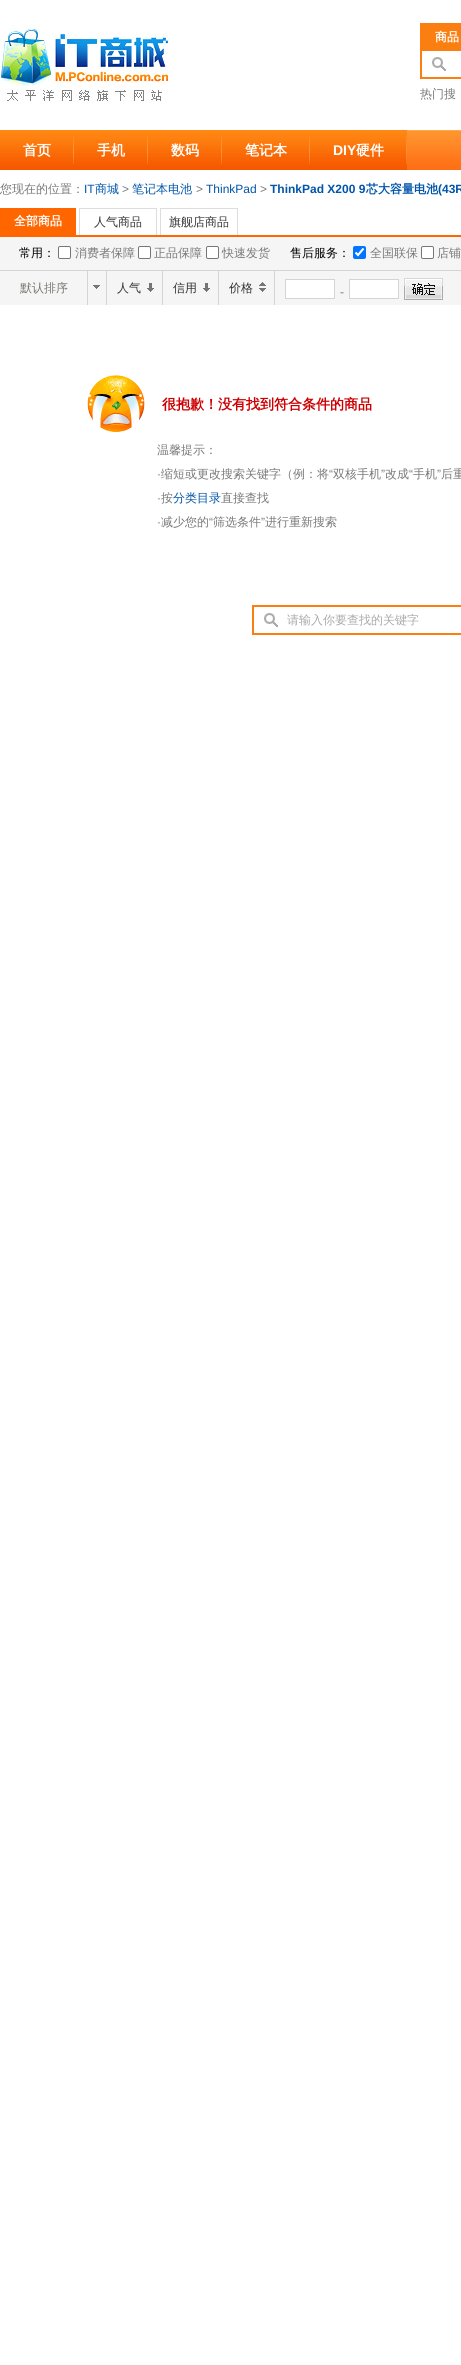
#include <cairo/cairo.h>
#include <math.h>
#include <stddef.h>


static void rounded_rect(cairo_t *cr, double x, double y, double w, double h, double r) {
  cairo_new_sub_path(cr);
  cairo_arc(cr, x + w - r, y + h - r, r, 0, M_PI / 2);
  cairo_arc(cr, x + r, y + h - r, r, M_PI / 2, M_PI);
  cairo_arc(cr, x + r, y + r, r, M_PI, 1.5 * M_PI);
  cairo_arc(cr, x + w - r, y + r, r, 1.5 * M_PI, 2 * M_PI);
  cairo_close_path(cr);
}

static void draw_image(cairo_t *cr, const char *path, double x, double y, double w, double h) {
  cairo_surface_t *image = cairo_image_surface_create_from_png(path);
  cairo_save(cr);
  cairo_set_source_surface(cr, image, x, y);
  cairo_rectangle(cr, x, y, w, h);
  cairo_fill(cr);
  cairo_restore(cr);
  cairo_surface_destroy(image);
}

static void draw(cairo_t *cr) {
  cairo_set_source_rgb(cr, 1, 1, 1);
  cairo_paint(cr);
  draw_image(cr, "images/1.png", 0, 25, 168, 79);
  cairo_set_source_rgb(cr, 251 / 255.0, 126 / 255.0, 16 / 255.0);
  cairo_rectangle(cr, 420, 23, 41, 56);
  cairo_fill(cr);
  cairo_set_source_rgb(cr, 1, 1, 1);
  cairo_rectangle(cr, 422, 51, 39, 26);
  cairo_fill(cr);
  draw_image(cr, "images/2.png", 432, 57, 14, 14);
  draw_image(cr, "images/3.png", 407, 130, 54, 40);
  draw_image(cr, "images/4.png", 0, 130, 74, 40);
  draw_image(cr, "images/4.png", 74, 130, 74, 40);
  draw_image(cr, "images/4.png", 148, 130, 74, 40);
  draw_image(cr, "images/5.png", 222, 130, 88, 40);
  draw_image(cr, "images/6.png", 310, 130, 97, 40);
  cairo_set_source_rgb(cr, 1, 102 / 255.0, 0);
  cairo_rectangle(cr, 0, 235, 461, 2);
  cairo_fill(cr);
  cairo_rectangle(cr, 0, 208, 76, 27);
  cairo_fill(cr);
  cairo_set_source_rgb(cr, 221 / 255.0, 221 / 255.0, 221 / 255.0);
  cairo_rectangle(cr, 79, 208, 78, 1);
  cairo_fill(cr);
  cairo_rectangle(cr, 156, 208, 1, 27);
  cairo_fill(cr);
  cairo_rectangle(cr, 79, 208, 1, 27);
  cairo_fill(cr);
  cairo_rectangle(cr, 160, 208, 78, 1);
  cairo_fill(cr);
  cairo_rectangle(cr, 237, 208, 1, 27);
  cairo_fill(cr);
  cairo_rectangle(cr, 160, 208, 1, 27);
  cairo_fill(cr);
  cairo_set_source_rgb(cr, 245 / 255.0, 245 / 255.0, 245 / 255.0);
  cairo_rectangle(cr, 0, 237, 461, 33);
  cairo_fill(cr);
  cairo_set_source_rgb(cr, 212 / 255.0, 212 / 255.0, 212 / 255.0);
  cairo_rectangle(cr, 0, 270, 461, 1);
  cairo_fill(cr);
  cairo_set_source_rgb(cr, 1, 1, 1);
  rounded_rect(cr, 58.5, 246.5, 12, 12, 1.5);
  cairo_fill_preserve(cr);
  cairo_set_source_rgb(cr, 118 / 255.0, 118 / 255.0, 118 / 255.0);
  cairo_set_line_width(cr, 1);
  cairo_stroke(cr);
  cairo_set_source_rgb(cr, 1, 1, 1);
  rounded_rect(cr, 138.5, 246.5, 12, 12, 1.5);
  cairo_fill_preserve(cr);
  cairo_set_source_rgb(cr, 118 / 255.0, 118 / 255.0, 118 / 255.0);
  cairo_stroke(cr);
  cairo_set_source_rgb(cr, 1, 1, 1);
  rounded_rect(cr, 206.5, 246.5, 12, 12, 1.5);
  cairo_fill_preserve(cr);
  cairo_set_source_rgb(cr, 118 / 255.0, 118 / 255.0, 118 / 255.0);
  cairo_stroke(cr);
  cairo_set_source_rgb(cr, 0, 117 / 255.0, 1);
  rounded_rect(cr, 353, 246, 13, 13, 2);
  cairo_fill(cr);
  cairo_new_path(cr);
  cairo_move_to(cr, 355.5, 252.5);
  cairo_line_to(cr, 358, 255);
  cairo_line_to(cr, 363.5, 248.5);
  cairo_set_source_rgb(cr, 1, 1, 1);
  cairo_set_line_width(cr, 2.1);
  cairo_stroke(cr);
  rounded_rect(cr, 421.5, 246.5, 12, 12, 1.5);
  cairo_fill_preserve(cr);
  cairo_set_source_rgb(cr, 118 / 255.0, 118 / 255.0, 118 / 255.0);
  cairo_set_line_width(cr, 1);
  cairo_stroke(cr);
  cairo_set_source_rgb(cr, 245 / 255.0, 245 / 255.0, 245 / 255.0);
  cairo_rectangle(cr, 0, 271, 461, 34);
  cairo_fill(cr);
  cairo_set_source_rgb(cr, 212 / 255.0, 212 / 255.0, 212 / 255.0);
  cairo_rectangle(cr, 87, 271, 1, 34);
  cairo_fill(cr);
  draw_image(cr, "images/7.png", 93, 285, 7, 4);
  cairo_rectangle(cr, 106, 271, 1, 34);
  cairo_fill(cr);
  draw_image(cr, "images/8.png", 147, 283, 7, 9);
  cairo_rectangle(cr, 162, 271, 1, 34);
  cairo_fill(cr);
  draw_image(cr, "images/8.png", 203, 283, 7, 9);
  cairo_rectangle(cr, 218, 271, 1, 34);
  cairo_fill(cr);
  draw_image(cr, "images/9.png", 259, 282, 7, 10);
  cairo_rectangle(cr, 274, 271, 1, 34);
  cairo_fill(cr);
  cairo_set_source_rgb(cr, 1, 1, 1);
  cairo_rectangle(cr, 285.5, 279.5, 49, 19);
  cairo_fill_preserve(cr);
  cairo_set_source_rgb(cr, 212 / 255.0, 212 / 255.0, 212 / 255.0);
  cairo_stroke(cr);
  cairo_set_source_rgb(cr, 1, 1, 1);
  cairo_rectangle(cr, 349.5, 279.5, 49, 19);
  cairo_fill_preserve(cr);
  cairo_set_source_rgb(cr, 212 / 255.0, 212 / 255.0, 212 / 255.0);
  cairo_stroke(cr);
  draw_image(cr, "images/10.png", 404, 278, 39, 22);
  draw_image(cr, "images/11.png", 87, 375, 58, 58);
  cairo_set_source_rgb(cr, 251 / 255.0, 126 / 255.0, 16 / 255.0);
  cairo_rectangle(cr, 252, 605, 209, 30);
  cairo_fill(cr);
  cairo_set_source_rgb(cr, 1, 1, 1);
  cairo_rectangle(cr, 254, 607, 207, 26);
  cairo_fill(cr);
  draw_image(cr, "images/2.png", 264, 613, 14, 14);
  cairo_select_font_face(cr, "WenQuanYi Zen Hei", CAIRO_FONT_SLANT_NORMAL, CAIRO_FONT_WEIGHT_BOLD);
  cairo_set_font_size(cr, 12);
  cairo_move_to(cr, 435, 41);
  cairo_show_text(cr, "商品");
  cairo_select_font_face(cr, "WenQuanYi Zen Hei Medium", CAIRO_FONT_SLANT_NORMAL, CAIRO_FONT_WEIGHT_NORMAL);
  cairo_set_source_rgb(cr, 120 / 255.0, 120 / 255.0, 120 / 255.0);
  cairo_move_to(cr, 420, 98);
  cairo_show_text(cr, "热门搜");
  cairo_select_font_face(cr, "WenQuanYi Zen Hei", CAIRO_FONT_SLANT_NORMAL, CAIRO_FONT_WEIGHT_BOLD);
  cairo_set_font_size(cr, 14);
  cairo_set_source_rgb(cr, 1, 1, 1);
  cairo_move_to(cr, 23, 155);
  cairo_show_text(cr, "首页");
  cairo_move_to(cr, 97, 155);
  cairo_show_text(cr, "手机");
  cairo_move_to(cr, 171, 155);
  cairo_show_text(cr, "数码");
  cairo_move_to(cr, 245, 155);
  cairo_show_text(cr, "笔记本");
  cairo_select_font_face(cr, "Liberation Sans", CAIRO_FONT_SLANT_NORMAL, CAIRO_FONT_WEIGHT_BOLD);
  cairo_move_to(cr, 333, 155);
  cairo_show_text(cr, "DIY");
  cairo_select_font_face(cr, "WenQuanYi Zen Hei", CAIRO_FONT_SLANT_NORMAL, CAIRO_FONT_WEIGHT_BOLD);
  cairo_move_to(cr, 356, 155);
  cairo_show_text(cr, "硬件");
  cairo_select_font_face(cr, "WenQuanYi Zen Hei Medium", CAIRO_FONT_SLANT_NORMAL, CAIRO_FONT_WEIGHT_NORMAL);
  cairo_set_font_size(cr, 12);
  cairo_set_source_rgb(cr, 120 / 255.0, 120 / 255.0, 120 / 255.0);
  cairo_move_to(cr, 0, 193);
  cairo_show_text(cr, "您现在的位置：");
  cairo_select_font_face(cr, "Liberation Sans", CAIRO_FONT_SLANT_NORMAL, CAIRO_FONT_WEIGHT_NORMAL);
  cairo_set_source_rgb(cr, 0, 85 / 255.0, 170 / 255.0);
  cairo_move_to(cr, 84, 193);
  cairo_show_text(cr, "IT");
  cairo_select_font_face(cr, "WenQuanYi Zen Hei Medium", CAIRO_FONT_SLANT_NORMAL, CAIRO_FONT_WEIGHT_NORMAL);
  cairo_move_to(cr, 95, 193);
  cairo_show_text(cr, "商城");
  cairo_select_font_face(cr, "Liberation Sans", CAIRO_FONT_SLANT_NORMAL, CAIRO_FONT_WEIGHT_NORMAL);
  cairo_set_source_rgb(cr, 120 / 255.0, 120 / 255.0, 120 / 255.0);
  cairo_move_to(cr, 122, 193);
  cairo_show_text(cr, ">");
  cairo_select_font_face(cr, "WenQuanYi Zen Hei Medium", CAIRO_FONT_SLANT_NORMAL, CAIRO_FONT_WEIGHT_NORMAL);
  cairo_set_source_rgb(cr, 0, 85 / 255.0, 170 / 255.0);
  cairo_move_to(cr, 132, 193);
  cairo_show_text(cr, "笔记本电池");
  cairo_select_font_face(cr, "Liberation Sans", CAIRO_FONT_SLANT_NORMAL, CAIRO_FONT_WEIGHT_NORMAL);
  cairo_set_source_rgb(cr, 120 / 255.0, 120 / 255.0, 120 / 255.0);
  cairo_move_to(cr, 196, 193);
  cairo_show_text(cr, ">");
  cairo_set_source_rgb(cr, 0, 85 / 255.0, 170 / 255.0);
  cairo_move_to(cr, 206, 193);
  cairo_show_text(cr, "ThinkPad");
  cairo_set_source_rgb(cr, 120 / 255.0, 120 / 255.0, 120 / 255.0);
  cairo_move_to(cr, 260, 193);
  cairo_show_text(cr, ">");
  cairo_select_font_face(cr, "Liberation Sans", CAIRO_FONT_SLANT_NORMAL, CAIRO_FONT_WEIGHT_BOLD);
  cairo_set_source_rgb(cr, 0, 85 / 255.0, 170 / 255.0);
  cairo_move_to(cr, 270, 193);
  cairo_show_text(cr, "ThinkPad X200 9");
  cairo_select_font_face(cr, "WenQuanYi Zen Hei", CAIRO_FONT_SLANT_NORMAL, CAIRO_FONT_WEIGHT_BOLD);
  cairo_move_to(cr, 366, 193);
  cairo_show_text(cr, "芯大容量电池");
  cairo_select_font_face(cr, "Liberation Sans", CAIRO_FONT_SLANT_NORMAL, CAIRO_FONT_WEIGHT_BOLD);
  cairo_move_to(cr, 438, 193);
  cairo_show_text(cr, "(43R");
  cairo_select_font_face(cr, "WenQuanYi Zen Hei", CAIRO_FONT_SLANT_NORMAL, CAIRO_FONT_WEIGHT_BOLD);
  cairo_set_source_rgb(cr, 1, 1, 1);
  cairo_move_to(cr, 14, 225);
  cairo_show_text(cr, "全部商品");
  cairo_select_font_face(cr, "WenQuanYi Zen Hei Medium", CAIRO_FONT_SLANT_NORMAL, CAIRO_FONT_WEIGHT_NORMAL);
  cairo_set_source_rgb(cr, 51 / 255.0, 51 / 255.0, 51 / 255.0);
  cairo_move_to(cr, 94, 226);
  cairo_show_text(cr, "人气商品");
  cairo_move_to(cr, 169, 226);
  cairo_show_text(cr, "旗舰店商品");
  cairo_set_source_rgb(cr, 0, 0, 0);
  cairo_move_to(cr, 19, 257);
  cairo_show_text(cr, "常用：");
  cairo_set_source_rgb(cr, 120 / 255.0, 120 / 255.0, 120 / 255.0);
  cairo_move_to(cr, 75, 257);
  cairo_show_text(cr, "消费者保障");
  cairo_move_to(cr, 154, 257);
  cairo_show_text(cr, "正品保障");
  cairo_move_to(cr, 222, 257);
  cairo_show_text(cr, "快速发货");
  cairo_set_source_rgb(cr, 0, 0, 0);
  cairo_move_to(cr, 290, 257);
  cairo_show_text(cr, "售后服务：");
  cairo_set_source_rgb(cr, 120 / 255.0, 120 / 255.0, 120 / 255.0);
  cairo_move_to(cr, 370, 257);
  cairo_show_text(cr, "全国联保");
  cairo_move_to(cr, 437, 257);
  cairo_show_text(cr, "店铺");
  cairo_set_source_rgb(cr, 119 / 255.0, 120 / 255.0, 112 / 255.0);
  cairo_move_to(cr, 20, 292);
  cairo_show_text(cr, "默认排序");
  cairo_set_source_rgb(cr, 51 / 255.0, 51 / 255.0, 51 / 255.0);
  cairo_move_to(cr, 117, 292);
  cairo_show_text(cr, "人气");
  cairo_move_to(cr, 173, 292);
  cairo_show_text(cr, "信用");
  cairo_move_to(cr, 229, 292);
  cairo_show_text(cr, "价格");
  cairo_select_font_face(cr, "Liberation Sans", CAIRO_FONT_SLANT_NORMAL, CAIRO_FONT_WEIGHT_NORMAL);
  cairo_set_source_rgb(cr, 119 / 255.0, 120 / 255.0, 112 / 255.0);
  cairo_move_to(cr, 340, 296);
  cairo_show_text(cr, "-");
  cairo_select_font_face(cr, "WenQuanYi Zen Hei", CAIRO_FONT_SLANT_NORMAL, CAIRO_FONT_WEIGHT_BOLD);
  cairo_set_font_size(cr, 14);
  cairo_set_source_rgb(cr, 204 / 255.0, 0, 1 / 255.0);
  cairo_move_to(cr, 162, 409);
  cairo_show_text(cr, "很抱歉！没有找到符合条件的商品");
  cairo_select_font_face(cr, "WenQuanYi Zen Hei Medium", CAIRO_FONT_SLANT_NORMAL, CAIRO_FONT_WEIGHT_NORMAL);
  cairo_set_font_size(cr, 12);
  cairo_set_source_rgb(cr, 120 / 255.0, 120 / 255.0, 120 / 255.0);
  cairo_move_to(cr, 157, 454);
  cairo_show_text(cr, "温馨提示：");
  cairo_move_to(cr, 161, 478);
  cairo_show_text(cr, "缩短或更改搜索关键字（例：将");
  cairo_select_font_face(cr, "Liberation Sans", CAIRO_FONT_SLANT_NORMAL, CAIRO_FONT_WEIGHT_NORMAL);
  cairo_move_to(cr, 329, 478);
  cairo_show_text(cr, "“");
  cairo_select_font_face(cr, "WenQuanYi Zen Hei Medium", CAIRO_FONT_SLANT_NORMAL, CAIRO_FONT_WEIGHT_NORMAL);
  cairo_move_to(cr, 333, 478);
  cairo_show_text(cr, "双核手机");
  cairo_select_font_face(cr, "Liberation Sans", CAIRO_FONT_SLANT_NORMAL, CAIRO_FONT_WEIGHT_NORMAL);
  cairo_move_to(cr, 381, 478);
  cairo_show_text(cr, "”");
  cairo_select_font_face(cr, "WenQuanYi Zen Hei Medium", CAIRO_FONT_SLANT_NORMAL, CAIRO_FONT_WEIGHT_NORMAL);
  cairo_move_to(cr, 385, 478);
  cairo_show_text(cr, "改成");
  cairo_select_font_face(cr, "Liberation Sans", CAIRO_FONT_SLANT_NORMAL, CAIRO_FONT_WEIGHT_NORMAL);
  cairo_move_to(cr, 409, 478);
  cairo_show_text(cr, "“");
  cairo_select_font_face(cr, "WenQuanYi Zen Hei Medium", CAIRO_FONT_SLANT_NORMAL, CAIRO_FONT_WEIGHT_NORMAL);
  cairo_move_to(cr, 413, 478);
  cairo_show_text(cr, "手机");
  cairo_select_font_face(cr, "Liberation Sans", CAIRO_FONT_SLANT_NORMAL, CAIRO_FONT_WEIGHT_NORMAL);
  cairo_move_to(cr, 437, 478);
  cairo_show_text(cr, "”");
  cairo_select_font_face(cr, "WenQuanYi Zen Hei Medium", CAIRO_FONT_SLANT_NORMAL, CAIRO_FONT_WEIGHT_NORMAL);
  cairo_move_to(cr, 441, 478);
  cairo_show_text(cr, "后重");
  cairo_select_font_face(cr, "Liberation Sans", CAIRO_FONT_SLANT_NORMAL, CAIRO_FONT_WEIGHT_NORMAL);
  cairo_move_to(cr, 157, 478);
  cairo_show_text(cr, "·");
  cairo_move_to(cr, 157, 502);
  cairo_show_text(cr, "·");
  cairo_select_font_face(cr, "WenQuanYi Zen Hei Medium", CAIRO_FONT_SLANT_NORMAL, CAIRO_FONT_WEIGHT_NORMAL);
  cairo_move_to(cr, 161, 502);
  cairo_show_text(cr, "按");
  cairo_set_source_rgb(cr, 0, 85 / 255.0, 170 / 255.0);
  cairo_move_to(cr, 173, 502);
  cairo_show_text(cr, "分类目录");
  cairo_set_source_rgb(cr, 120 / 255.0, 120 / 255.0, 120 / 255.0);
  cairo_move_to(cr, 221, 502);
  cairo_show_text(cr, "直接查找");
  cairo_move_to(cr, 161, 526);
  cairo_show_text(cr, "减少您的");
  cairo_select_font_face(cr, "Liberation Sans", CAIRO_FONT_SLANT_NORMAL, CAIRO_FONT_WEIGHT_NORMAL);
  cairo_move_to(cr, 209, 526);
  cairo_show_text(cr, "“");
  cairo_select_font_face(cr, "WenQuanYi Zen Hei Medium", CAIRO_FONT_SLANT_NORMAL, CAIRO_FONT_WEIGHT_NORMAL);
  cairo_move_to(cr, 213, 526);
  cairo_show_text(cr, "筛选条件");
  cairo_select_font_face(cr, "Liberation Sans", CAIRO_FONT_SLANT_NORMAL, CAIRO_FONT_WEIGHT_NORMAL);
  cairo_move_to(cr, 261, 526);
  cairo_show_text(cr, "”");
  cairo_select_font_face(cr, "WenQuanYi Zen Hei Medium", CAIRO_FONT_SLANT_NORMAL, CAIRO_FONT_WEIGHT_NORMAL);
  cairo_move_to(cr, 265, 526);
  cairo_show_text(cr, "进行重新搜索");
  cairo_select_font_face(cr, "Liberation Sans", CAIRO_FONT_SLANT_NORMAL, CAIRO_FONT_WEIGHT_NORMAL);
  cairo_move_to(cr, 157, 526);
  cairo_show_text(cr, "·");
  cairo_select_font_face(cr, "WenQuanYi Zen Hei Medium", CAIRO_FONT_SLANT_NORMAL, CAIRO_FONT_WEIGHT_NORMAL);
  cairo_set_source_rgb(cr, 170 / 255.0, 170 / 255.0, 170 / 255.0);
  cairo_move_to(cr, 287, 624);
  cairo_show_text(cr, "请输入你要查找的关键字");
}

int main(void) {
  cairo_surface_t *surface = cairo_image_surface_create(CAIRO_FORMAT_RGB24, 461, 2365);
  cairo_t *cr = cairo_create(surface);
  cairo_font_options_t *options = cairo_font_options_create();
  cairo_font_options_set_hint_metrics(options, CAIRO_HINT_METRICS_OFF);
  cairo_font_options_set_hint_style(options, CAIRO_HINT_STYLE_NONE);
  cairo_set_font_options(cr, options);
  cairo_set_miter_limit(cr, 4);
  draw(cr);
  cairo_surface_write_to_png(surface, "out.png");
  cairo_font_options_destroy(options);
  cairo_destroy(cr);
  cairo_surface_destroy(surface);
  return 0;
}
